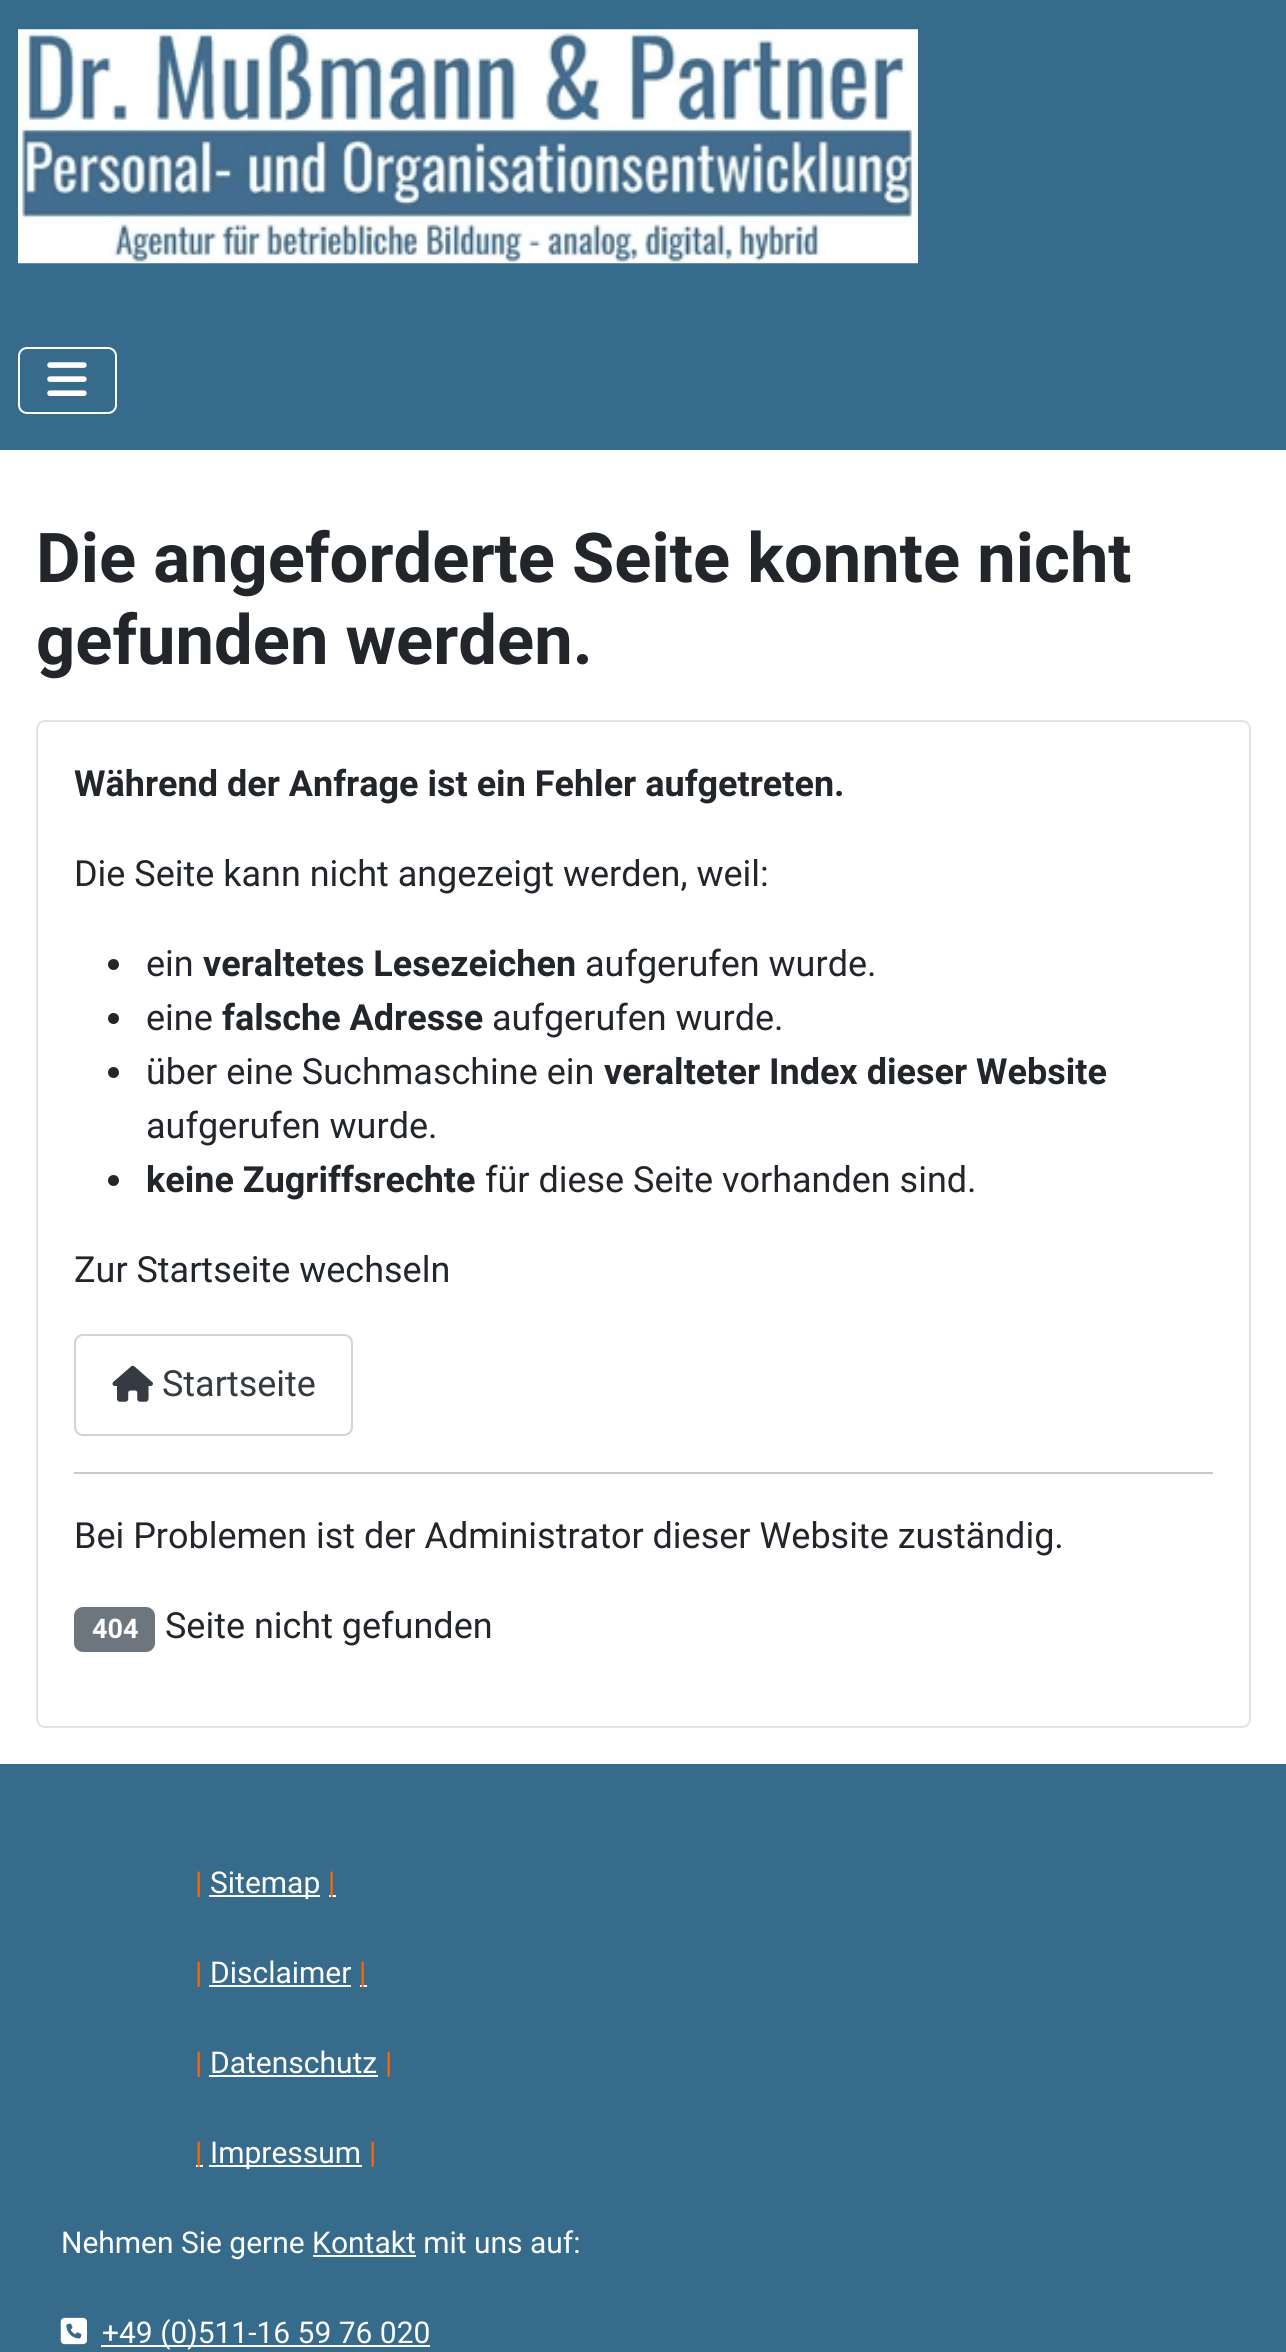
#include <cairo/cairo.h>
#include <math.h>
#include <stddef.h>


static void rounded_rect(cairo_t *cr, double x, double y, double w, double h, double r) {
  cairo_new_sub_path(cr);
  cairo_arc(cr, x + w - r, y + h - r, r, 0, M_PI / 2);
  cairo_arc(cr, x + r, y + h - r, r, M_PI / 2, M_PI);
  cairo_arc(cr, x + r, y + r, r, M_PI, 1.5 * M_PI);
  cairo_arc(cr, x + w - r, y + r, r, 1.5 * M_PI, 2 * M_PI);
  cairo_close_path(cr);
}

static void draw_image(cairo_t *cr, const char *path, double x, double y, double w, double h) {
  cairo_surface_t *image = cairo_image_surface_create_from_png(path);
  cairo_save(cr);
  cairo_set_source_surface(cr, image, x, y);
  cairo_rectangle(cr, x, y, w, h);
  cairo_fill(cr);
  cairo_restore(cr);
  cairo_surface_destroy(image);
}

static void draw(cairo_t *cr) {
  cairo_set_source_rgb(cr, 1, 1, 1);
  cairo_paint(cr);
  cairo_set_source_rgb(cr, 55 / 255.0, 107 / 255.0, 140 / 255.0);
  cairo_rectangle(cr, 0, 0, 1286, 450);
  cairo_fill(cr);
  draw_image(cr, "images/1.png", 18, 29, 900, 235);
  rounded_rect(cr, 19, 348, 97, 65, 8);
  cairo_set_source_rgb(cr, 1, 1, 1);
  cairo_stroke(cr);
  draw_image(cr, "images/2.png", 47, 362, 40, 34);
  rounded_rect(cr, 37, 721, 1213, 1006, 8);
  cairo_set_source_rgb(cr, 223 / 255.0, 227 / 255.0, 231 / 255.0);
  cairo_stroke(cr);
  cairo_set_source_rgb(cr, 34 / 255.0, 38 / 255.0, 42 / 255.0);
  cairo_arc(cr, 113.5, 964.5, 5.5, 0, 2 * M_PI);
  cairo_fill(cr);
  cairo_arc(cr, 113.5, 1018.5, 5.5, 0, 2 * M_PI);
  cairo_fill(cr);
  cairo_arc(cr, 113.5, 1072.5, 5.5, 0, 2 * M_PI);
  cairo_fill(cr);
  cairo_arc(cr, 113.5, 1180.5, 5.5, 0, 2 * M_PI);
  cairo_fill(cr);
  rounded_rect(cr, 75, 1335, 277, 100, 8);
  cairo_set_source_rgb(cr, 206 / 255.0, 212 / 255.0, 218 / 255.0);
  cairo_stroke(cr);
  draw_image(cr, "images/3.png", 112, 1365, 41, 37);
  cairo_set_source_rgb(cr, 200 / 255.0, 201 / 255.0, 202 / 255.0);
  cairo_rectangle(cr, 74, 1472, 1139, 2);
  cairo_fill(cr);
  cairo_set_source_rgb(cr, 109 / 255.0, 117 / 255.0, 126 / 255.0);
  rounded_rect(cr, 74, 1607, 81, 45, 9);
  cairo_fill(cr);
  cairo_set_source_rgb(cr, 55 / 255.0, 107 / 255.0, 140 / 255.0);
  cairo_rectangle(cr, 0, 1764, 1286, 588);
  cairo_fill(cr);
  cairo_set_source_rgb(cr, 1, 1, 1);
  cairo_rectangle(cr, 209, 1895, 111, 2);
  cairo_fill(cr);
  cairo_rectangle(cr, 329, 1895, 7, 2);
  cairo_fill(cr);
  cairo_rectangle(cr, 209, 1985, 142, 2);
  cairo_fill(cr);
  cairo_rectangle(cr, 360, 1985, 7, 2);
  cairo_fill(cr);
  cairo_rectangle(cr, 209, 2075, 169, 2);
  cairo_fill(cr);
  cairo_rectangle(cr, 196, 2165, 7, 2);
  cairo_fill(cr);
  cairo_rectangle(cr, 209, 2165, 153, 2);
  cairo_fill(cr);
  cairo_rectangle(cr, 313, 2255, 103, 2);
  cairo_fill(cr);
  draw_image(cr, "images/4.png", 60, 2317, 27, 28);
  cairo_rectangle(cr, 101, 2345, 329, 2);
  cairo_fill(cr);
  cairo_select_font_face(cr, "Roboto", CAIRO_FONT_SLANT_NORMAL, CAIRO_FONT_WEIGHT_BOLD);
  cairo_set_font_size(cr, 68.75);
  cairo_set_source_rgb(cr, 34 / 255.0, 38 / 255.0, 42 / 255.0);
  cairo_move_to(cr, 36, 582);
  cairo_show_text(cr, "Die angeforderte Seite konnte nicht");
  cairo_move_to(cr, 36, 664);
  cairo_show_text(cr, "gefunden werden.");
  cairo_set_font_size(cr, 36);
  cairo_move_to(cr, 74, 796);
  cairo_show_text(cr, "Während der Anfrage ist ein Fehler aufgetreten.");
  cairo_select_font_face(cr, "Roboto", CAIRO_FONT_SLANT_NORMAL, CAIRO_FONT_WEIGHT_NORMAL);
  cairo_move_to(cr, 74, 886);
  cairo_show_text(cr, "Die Seite kann nicht angezeigt werden, weil:");
  cairo_move_to(cr, 146, 976);
  cairo_show_text(cr, "ein");
  cairo_select_font_face(cr, "Roboto", CAIRO_FONT_SLANT_NORMAL, CAIRO_FONT_WEIGHT_BOLD);
  cairo_move_to(cr, 203, 976);
  cairo_show_text(cr, "veraltetes Lesezeichen");
  cairo_select_font_face(cr, "Roboto", CAIRO_FONT_SLANT_NORMAL, CAIRO_FONT_WEIGHT_NORMAL);
  cairo_move_to(cr, 585, 976);
  cairo_show_text(cr, "aufgerufen wurde.");
  cairo_move_to(cr, 146, 1030);
  cairo_show_text(cr, "eine");
  cairo_select_font_face(cr, "Roboto", CAIRO_FONT_SLANT_NORMAL, CAIRO_FONT_WEIGHT_BOLD);
  cairo_move_to(cr, 222, 1030);
  cairo_show_text(cr, "falsche Adresse");
  cairo_select_font_face(cr, "Roboto", CAIRO_FONT_SLANT_NORMAL, CAIRO_FONT_WEIGHT_NORMAL);
  cairo_move_to(cr, 492, 1030);
  cairo_show_text(cr, "aufgerufen wurde.");
  cairo_move_to(cr, 146, 1084);
  cairo_show_text(cr, "über eine Suchmaschine ein");
  cairo_select_font_face(cr, "Roboto", CAIRO_FONT_SLANT_NORMAL, CAIRO_FONT_WEIGHT_BOLD);
  cairo_move_to(cr, 604, 1084);
  cairo_show_text(cr, "veralteter Index dieser Website");
  cairo_select_font_face(cr, "Roboto", CAIRO_FONT_SLANT_NORMAL, CAIRO_FONT_WEIGHT_NORMAL);
  cairo_move_to(cr, 146, 1138);
  cairo_show_text(cr, "aufgerufen wurde.");
  cairo_select_font_face(cr, "Roboto", CAIRO_FONT_SLANT_NORMAL, CAIRO_FONT_WEIGHT_BOLD);
  cairo_move_to(cr, 146, 1192);
  cairo_show_text(cr, "keine Zugriffsrechte");
  cairo_select_font_face(cr, "Roboto", CAIRO_FONT_SLANT_NORMAL, CAIRO_FONT_WEIGHT_NORMAL);
  cairo_move_to(cr, 485, 1192);
  cairo_show_text(cr, "für diese Seite vorhanden sind.");
  cairo_move_to(cr, 74, 1282);
  cairo_show_text(cr, "Zur Startseite wechseln");
  cairo_set_source_rgb(cr, 53 / 255.0, 59 / 255.0, 65 / 255.0);
  cairo_move_to(cr, 162, 1396);
  cairo_show_text(cr, "Startseite");
  cairo_set_source_rgb(cr, 34 / 255.0, 38 / 255.0, 42 / 255.0);
  cairo_move_to(cr, 74, 1548);
  cairo_show_text(cr, "Bei Problemen ist der Administrator dieser Website zuständig.");
  cairo_select_font_face(cr, "Roboto", CAIRO_FONT_SLANT_NORMAL, CAIRO_FONT_WEIGHT_BOLD);
  cairo_set_font_size(cr, 27);
  cairo_set_source_rgb(cr, 1, 1, 1);
  cairo_move_to(cr, 92, 1638);
  cairo_show_text(cr, "404");
  cairo_select_font_face(cr, "Roboto", CAIRO_FONT_SLANT_NORMAL, CAIRO_FONT_WEIGHT_NORMAL);
  cairo_set_font_size(cr, 36);
  cairo_set_source_rgb(cr, 34 / 255.0, 38 / 255.0, 42 / 255.0);
  cairo_move_to(cr, 165, 1638);
  cairo_show_text(cr, "Seite nicht gefunden");
  cairo_set_font_size(cr, 30);
  cairo_set_source_rgb(cr, 1, 102 / 255.0, 0);
  cairo_move_to(cr, 195, 1893);
  cairo_show_text(cr, "|");
  cairo_set_source_rgb(cr, 1, 1, 1);
  cairo_move_to(cr, 210, 1893);
  cairo_show_text(cr, "Sitemap");
  cairo_set_source_rgb(cr, 1, 102 / 255.0, 0);
  cairo_move_to(cr, 328, 1893);
  cairo_show_text(cr, "|");
  cairo_move_to(cr, 195, 1983);
  cairo_show_text(cr, "|");
  cairo_set_source_rgb(cr, 1, 1, 1);
  cairo_move_to(cr, 210, 1983);
  cairo_show_text(cr, "Disclaimer");
  cairo_set_source_rgb(cr, 1, 102 / 255.0, 0);
  cairo_move_to(cr, 359, 1983);
  cairo_show_text(cr, "|");
  cairo_move_to(cr, 195, 2073);
  cairo_show_text(cr, "|");
  cairo_set_source_rgb(cr, 1, 1, 1);
  cairo_move_to(cr, 210, 2073);
  cairo_show_text(cr, "Datenschutz");
  cairo_set_source_rgb(cr, 1, 102 / 255.0, 0);
  cairo_move_to(cr, 385, 2073);
  cairo_show_text(cr, "|");
  cairo_move_to(cr, 195, 2163);
  cairo_show_text(cr, "|");
  cairo_set_source_rgb(cr, 1, 1, 1);
  cairo_move_to(cr, 210, 2163);
  cairo_show_text(cr, "Impressum");
  cairo_set_source_rgb(cr, 1, 102 / 255.0, 0);
  cairo_move_to(cr, 369, 2163);
  cairo_show_text(cr, "|");
  cairo_set_source_rgb(cr, 1, 1, 1);
  cairo_move_to(cr, 61, 2253);
  cairo_show_text(cr, "Nehmen Sie gerne Kontakt mit uns auf:");
  cairo_move_to(cr, 102, 2343);
  cairo_show_text(cr, "+49 (0)511-16 59 76 020");
}

int main(void) {
  cairo_surface_t *surface = cairo_image_surface_create(CAIRO_FORMAT_RGB24, 1286, 2352);
  cairo_t *cr = cairo_create(surface);
  cairo_font_options_t *options = cairo_font_options_create();
  cairo_font_options_set_hint_metrics(options, CAIRO_HINT_METRICS_OFF);
  cairo_font_options_set_hint_style(options, CAIRO_HINT_STYLE_NONE);
  cairo_set_font_options(cr, options);
  cairo_set_miter_limit(cr, 4);
  draw(cr);
  cairo_surface_write_to_png(surface, "out.png");
  cairo_font_options_destroy(options);
  cairo_destroy(cr);
  cairo_surface_destroy(surface);
  return 0;
}
